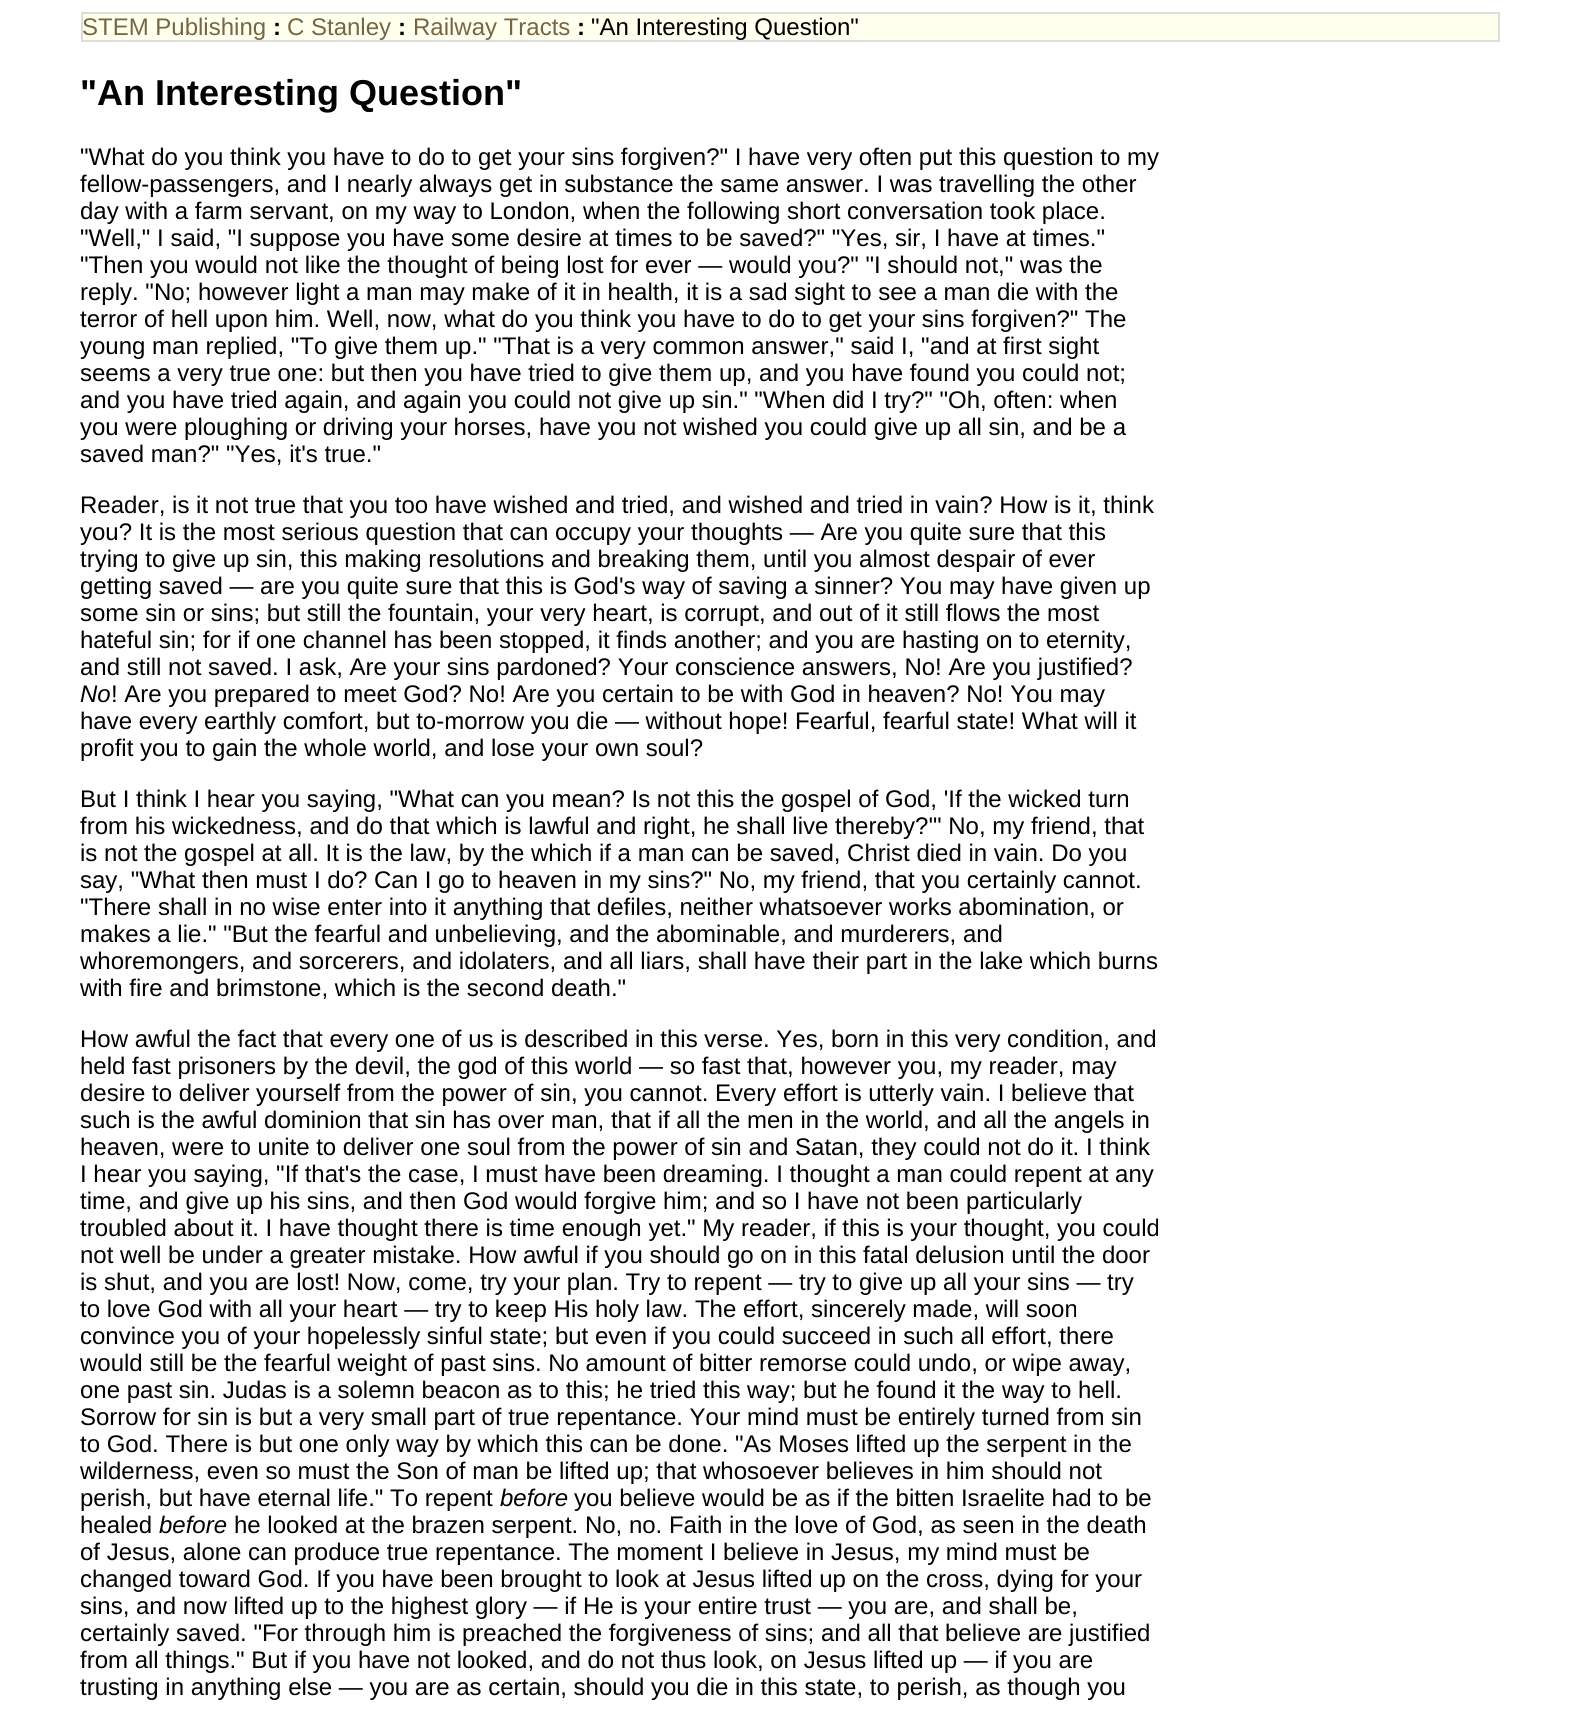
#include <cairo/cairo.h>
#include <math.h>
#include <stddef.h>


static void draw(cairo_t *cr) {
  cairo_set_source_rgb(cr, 1, 1, 1);
  cairo_paint(cr);
  cairo_set_source_rgb(cr, 1, 1, 238 / 255.0);
  cairo_rectangle(cr, 82, 13, 1417, 28);
  cairo_fill_preserve(cr);
  cairo_set_source_rgb(cr, 221 / 255.0, 221 / 255.0, 221 / 255.0);
  cairo_stroke(cr);
  cairo_select_font_face(cr, "Liberation Sans", CAIRO_FONT_SLANT_NORMAL, CAIRO_FONT_WEIGHT_NORMAL);
  cairo_set_font_size(cr, 24);
  cairo_set_source_rgb(cr, 119 / 255.0, 102 / 255.0, 68 / 255.0);
  cairo_move_to(cr, 82, 35);
  cairo_show_text(cr, "STEM Publishing");
  cairo_select_font_face(cr, "Liberation Sans", CAIRO_FONT_SLANT_NORMAL, CAIRO_FONT_WEIGHT_BOLD);
  cairo_set_source_rgb(cr, 0, 0, 0);
  cairo_move_to(cr, 273, 35);
  cairo_show_text(cr, ":");
  cairo_select_font_face(cr, "Liberation Sans", CAIRO_FONT_SLANT_NORMAL, CAIRO_FONT_WEIGHT_NORMAL);
  cairo_set_source_rgb(cr, 119 / 255.0, 102 / 255.0, 68 / 255.0);
  cairo_move_to(cr, 287, 35);
  cairo_show_text(cr, "C Stanley");
  cairo_select_font_face(cr, "Liberation Sans", CAIRO_FONT_SLANT_NORMAL, CAIRO_FONT_WEIGHT_BOLD);
  cairo_set_source_rgb(cr, 0, 0, 0);
  cairo_move_to(cr, 398, 35);
  cairo_show_text(cr, ":");
  cairo_select_font_face(cr, "Liberation Sans", CAIRO_FONT_SLANT_NORMAL, CAIRO_FONT_WEIGHT_NORMAL);
  cairo_set_source_rgb(cr, 119 / 255.0, 102 / 255.0, 68 / 255.0);
  cairo_move_to(cr, 413, 35);
  cairo_show_text(cr, "Railway Tracts");
  cairo_select_font_face(cr, "Liberation Sans", CAIRO_FONT_SLANT_NORMAL, CAIRO_FONT_WEIGHT_BOLD);
  cairo_set_source_rgb(cr, 0, 0, 0);
  cairo_move_to(cr, 577, 35);
  cairo_show_text(cr, ":");
  cairo_select_font_face(cr, "Liberation Sans", CAIRO_FONT_SLANT_NORMAL, CAIRO_FONT_WEIGHT_NORMAL);
  cairo_move_to(cr, 591, 35);
  cairo_show_text(cr, "\"An Interesting Question\"");
  cairo_select_font_face(cr, "Liberation Sans", CAIRO_FONT_SLANT_NORMAL, CAIRO_FONT_WEIGHT_BOLD);
  cairo_set_font_size(cr, 36);
  cairo_move_to(cr, 80, 105);
  cairo_show_text(cr, "\"An Interesting Question\"");
  cairo_select_font_face(cr, "Liberation Sans", CAIRO_FONT_SLANT_NORMAL, CAIRO_FONT_WEIGHT_NORMAL);
  cairo_set_font_size(cr, 24);
  cairo_move_to(cr, 80, 165);
  cairo_show_text(cr, "\"What do you think you have to do to get your sins forgiven?\" I have very often put this question to my");
  cairo_move_to(cr, 80, 192);
  cairo_show_text(cr, "fellow-passengers, and I nearly always get in substance the same answer. I was travelling the other");
  cairo_move_to(cr, 80, 219);
  cairo_show_text(cr, "day with a farm servant, on my way to London, when the following short conversation took place.");
  cairo_move_to(cr, 80, 246);
  cairo_show_text(cr, "\"Well,\" I said, \"I suppose you have some desire at times to be saved?\" \"Yes, sir, I have at times.\"");
  cairo_move_to(cr, 80, 273);
  cairo_show_text(cr, "\"Then you would not like the thought of being lost for ever — would you?\" \"I should not,\" was the");
  cairo_move_to(cr, 80, 300);
  cairo_show_text(cr, "reply. \"No; however light a man may make of it in health, it is a sad sight to see a man die with the");
  cairo_move_to(cr, 80, 327);
  cairo_show_text(cr, "terror of hell upon him. Well, now, what do you think you have to do to get your sins forgiven?\" The");
  cairo_move_to(cr, 80, 354);
  cairo_show_text(cr, "young man replied, \"To give them up.\" \"That is a very common answer,\" said I, \"and at first sight");
  cairo_move_to(cr, 80, 381);
  cairo_show_text(cr, "seems a very true one: but then you have tried to give them up, and you have found you could not;");
  cairo_move_to(cr, 80, 408);
  cairo_show_text(cr, "and you have tried again, and again you could not give up sin.\" \"When did I try?\" \"Oh, often: when");
  cairo_move_to(cr, 80, 435);
  cairo_show_text(cr, "you were ploughing or driving your horses, have you not wished you could give up all sin, and be a");
  cairo_move_to(cr, 80, 462);
  cairo_show_text(cr, "saved man?\" \"Yes, it's true.\"");
  cairo_move_to(cr, 80, 513);
  cairo_show_text(cr, "Reader, is it not true that you too have wished and tried, and wished and tried in vain? How is it, think");
  cairo_move_to(cr, 80, 540);
  cairo_show_text(cr, "you? It is the most serious question that can occupy your thoughts — Are you quite sure that this");
  cairo_move_to(cr, 80, 567);
  cairo_show_text(cr, "trying to give up sin, this making resolutions and breaking them, until you almost despair of ever");
  cairo_move_to(cr, 80, 594);
  cairo_show_text(cr, "getting saved — are you quite sure that this is God's way of saving a sinner? You may have given up");
  cairo_move_to(cr, 80, 621);
  cairo_show_text(cr, "some sin or sins; but still the fountain, your very heart, is corrupt, and out of it still flows the most");
  cairo_move_to(cr, 80, 648);
  cairo_show_text(cr, "hateful sin; for if one channel has been stopped, it finds another; and you are hasting on to eternity,");
  cairo_move_to(cr, 80, 675);
  cairo_show_text(cr, "and still not saved. I ask, Are your sins pardoned? Your conscience answers, No! Are you justified?");
  cairo_select_font_face(cr, "Liberation Sans", CAIRO_FONT_SLANT_ITALIC, CAIRO_FONT_WEIGHT_NORMAL);
  cairo_move_to(cr, 80, 702);
  cairo_show_text(cr, "No");
  cairo_select_font_face(cr, "Liberation Sans", CAIRO_FONT_SLANT_NORMAL, CAIRO_FONT_WEIGHT_NORMAL);
  cairo_move_to(cr, 111, 702);
  cairo_show_text(cr, "! Are you prepared to meet God? No! Are you certain to be with God in heaven? No! You may");
  cairo_move_to(cr, 80, 729);
  cairo_show_text(cr, "have every earthly comfort, but to-morrow you die — without hope! Fearful, fearful state! What will it");
  cairo_move_to(cr, 80, 756);
  cairo_show_text(cr, "profit you to gain the whole world, and lose your own soul?");
  cairo_move_to(cr, 80, 807);
  cairo_show_text(cr, "But I think I hear you saying, \"What can you mean? Is not this the gospel of God, 'If the wicked turn");
  cairo_move_to(cr, 80, 834);
  cairo_show_text(cr, "from his wickedness, and do that which is lawful and right, he shall live thereby?'\" No, my friend, that");
  cairo_move_to(cr, 80, 861);
  cairo_show_text(cr, "is not the gospel at all. It is the law, by the which if a man can be saved, Christ died in vain. Do you");
  cairo_move_to(cr, 80, 888);
  cairo_show_text(cr, "say, \"What then must I do? Can I go to heaven in my sins?\" No, my friend, that you certainly cannot.");
  cairo_move_to(cr, 80, 915);
  cairo_show_text(cr, "\"There shall in no wise enter into it anything that defiles, neither whatsoever works abomination, or");
  cairo_move_to(cr, 80, 942);
  cairo_show_text(cr, "makes a lie.\" \"But the fearful and unbelieving, and the abominable, and murderers, and");
  cairo_move_to(cr, 80, 969);
  cairo_show_text(cr, "whoremongers, and sorcerers, and idolaters, and all liars, shall have their part in the lake which burns");
  cairo_move_to(cr, 80, 996);
  cairo_show_text(cr, "with fire and brimstone, which is the second death.\"");
  cairo_move_to(cr, 80, 1047);
  cairo_show_text(cr, "How awful the fact that every one of us is described in this verse. Yes, born in this very condition, and");
  cairo_move_to(cr, 80, 1074);
  cairo_show_text(cr, "held fast prisoners by the devil, the god of this world — so fast that, however you, my reader, may");
  cairo_move_to(cr, 80, 1101);
  cairo_show_text(cr, "desire to deliver yourself from the power of sin, you cannot. Every effort is utterly vain. I believe that");
  cairo_move_to(cr, 80, 1128);
  cairo_show_text(cr, "such is the awful dominion that sin has over man, that if all the men in the world, and all the angels in");
  cairo_move_to(cr, 80, 1155);
  cairo_show_text(cr, "heaven, were to unite to deliver one soul from the power of sin and Satan, they could not do it. I think");
  cairo_move_to(cr, 80, 1182);
  cairo_show_text(cr, "I hear you saying, \"If that's the case, I must have been dreaming. I thought a man could repent at any");
  cairo_move_to(cr, 80, 1209);
  cairo_show_text(cr, "time, and give up his sins, and then God would forgive him; and so I have not been particularly");
  cairo_move_to(cr, 80, 1236);
  cairo_show_text(cr, "troubled about it. I have thought there is time enough yet.\" My reader, if this is your thought, you could");
  cairo_move_to(cr, 80, 1263);
  cairo_show_text(cr, "not well be under a greater mistake. How awful if you should go on in this fatal delusion until the door");
  cairo_move_to(cr, 80, 1290);
  cairo_show_text(cr, "is shut, and you are lost! Now, come, try your plan. Try to repent — try to give up all your sins — try");
  cairo_move_to(cr, 80, 1317);
  cairo_show_text(cr, "to love God with all your heart — try to keep His holy law. The effort, sincerely made, will soon");
  cairo_move_to(cr, 80, 1344);
  cairo_show_text(cr, "convince you of your hopelessly sinful state; but even if you could succeed in such all effort, there");
  cairo_move_to(cr, 80, 1371);
  cairo_show_text(cr, "would still be the fearful weight of past sins. No amount of bitter remorse could undo, or wipe away,");
  cairo_move_to(cr, 80, 1398);
  cairo_show_text(cr, "one past sin. Judas is a solemn beacon as to this; he tried this way; but he found it the way to hell.");
  cairo_move_to(cr, 80, 1425);
  cairo_show_text(cr, "Sorrow for sin is but a very small part of true repentance. Your mind must be entirely turned from sin");
  cairo_move_to(cr, 80, 1452);
  cairo_show_text(cr, "to God. There is but one only way by which this can be done. \"As Moses lifted up the serpent in the");
  cairo_move_to(cr, 80, 1479);
  cairo_show_text(cr, "wilderness, even so must the Son of man be lifted up; that whosoever believes in him should not");
  cairo_move_to(cr, 80, 1506);
  cairo_show_text(cr, "perish, but have eternal life.\" To repent");
  cairo_select_font_face(cr, "Liberation Sans", CAIRO_FONT_SLANT_ITALIC, CAIRO_FONT_WEIGHT_NORMAL);
  cairo_move_to(cr, 500, 1506);
  cairo_show_text(cr, "before");
  cairo_select_font_face(cr, "Liberation Sans", CAIRO_FONT_SLANT_NORMAL, CAIRO_FONT_WEIGHT_NORMAL);
  cairo_move_to(cr, 574, 1506);
  cairo_show_text(cr, "you believe would be as if the bitten Israelite had to be");
  cairo_move_to(cr, 80, 1533);
  cairo_show_text(cr, "healed");
  cairo_select_font_face(cr, "Liberation Sans", CAIRO_FONT_SLANT_ITALIC, CAIRO_FONT_WEIGHT_NORMAL);
  cairo_move_to(cr, 159, 1533);
  cairo_show_text(cr, "before");
  cairo_select_font_face(cr, "Liberation Sans", CAIRO_FONT_SLANT_NORMAL, CAIRO_FONT_WEIGHT_NORMAL);
  cairo_move_to(cr, 234, 1533);
  cairo_show_text(cr, "he looked at the brazen serpent. No, no. Faith in the love of God, as seen in the death");
  cairo_move_to(cr, 80, 1560);
  cairo_show_text(cr, "of Jesus, alone can produce true repentance. The moment I believe in Jesus, my mind must be");
  cairo_move_to(cr, 80, 1587);
  cairo_show_text(cr, "changed toward God. If you have been brought to look at Jesus lifted up on the cross, dying for your");
  cairo_move_to(cr, 80, 1614);
  cairo_show_text(cr, "sins, and now lifted up to the highest glory — if He is your entire trust — you are, and shall be,");
  cairo_move_to(cr, 80, 1641);
  cairo_show_text(cr, "certainly saved. \"For through him is preached the forgiveness of sins; and all that believe are justified");
  cairo_move_to(cr, 80, 1668);
  cairo_show_text(cr, "from all things.\" But if you have not looked, and do not thus look, on Jesus lifted up — if you are");
  cairo_move_to(cr, 80, 1695);
  cairo_show_text(cr, "trusting in anything else — you are as certain, should you die in this state, to perish, as though you");
}

int main(void) {
  cairo_surface_t *surface = cairo_image_surface_create(CAIRO_FORMAT_RGB24, 1576, 1717);
  cairo_t *cr = cairo_create(surface);
  cairo_font_options_t *options = cairo_font_options_create();
  cairo_font_options_set_hint_metrics(options, CAIRO_HINT_METRICS_OFF);
  cairo_font_options_set_hint_style(options, CAIRO_HINT_STYLE_NONE);
  cairo_set_font_options(cr, options);
  cairo_set_miter_limit(cr, 4);
  draw(cr);
  cairo_surface_write_to_png(surface, "out.png");
  cairo_font_options_destroy(options);
  cairo_destroy(cr);
  cairo_surface_destroy(surface);
  return 0;
}
